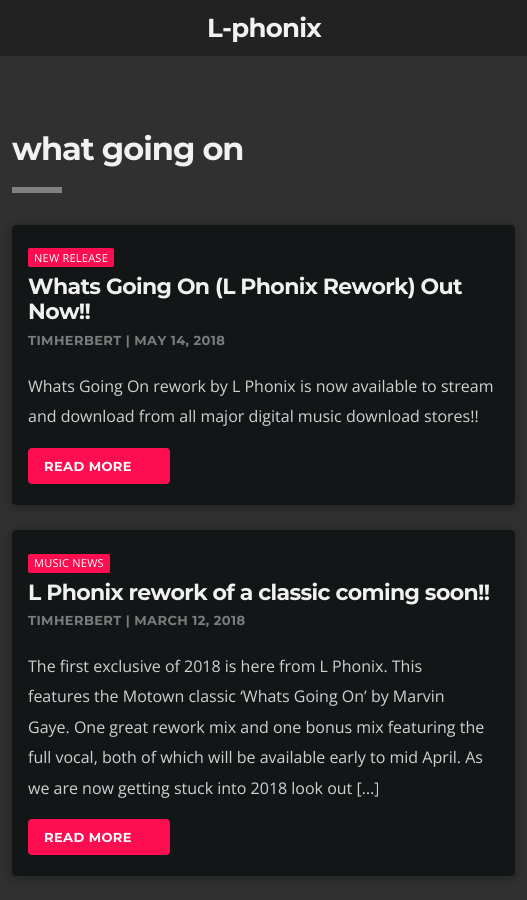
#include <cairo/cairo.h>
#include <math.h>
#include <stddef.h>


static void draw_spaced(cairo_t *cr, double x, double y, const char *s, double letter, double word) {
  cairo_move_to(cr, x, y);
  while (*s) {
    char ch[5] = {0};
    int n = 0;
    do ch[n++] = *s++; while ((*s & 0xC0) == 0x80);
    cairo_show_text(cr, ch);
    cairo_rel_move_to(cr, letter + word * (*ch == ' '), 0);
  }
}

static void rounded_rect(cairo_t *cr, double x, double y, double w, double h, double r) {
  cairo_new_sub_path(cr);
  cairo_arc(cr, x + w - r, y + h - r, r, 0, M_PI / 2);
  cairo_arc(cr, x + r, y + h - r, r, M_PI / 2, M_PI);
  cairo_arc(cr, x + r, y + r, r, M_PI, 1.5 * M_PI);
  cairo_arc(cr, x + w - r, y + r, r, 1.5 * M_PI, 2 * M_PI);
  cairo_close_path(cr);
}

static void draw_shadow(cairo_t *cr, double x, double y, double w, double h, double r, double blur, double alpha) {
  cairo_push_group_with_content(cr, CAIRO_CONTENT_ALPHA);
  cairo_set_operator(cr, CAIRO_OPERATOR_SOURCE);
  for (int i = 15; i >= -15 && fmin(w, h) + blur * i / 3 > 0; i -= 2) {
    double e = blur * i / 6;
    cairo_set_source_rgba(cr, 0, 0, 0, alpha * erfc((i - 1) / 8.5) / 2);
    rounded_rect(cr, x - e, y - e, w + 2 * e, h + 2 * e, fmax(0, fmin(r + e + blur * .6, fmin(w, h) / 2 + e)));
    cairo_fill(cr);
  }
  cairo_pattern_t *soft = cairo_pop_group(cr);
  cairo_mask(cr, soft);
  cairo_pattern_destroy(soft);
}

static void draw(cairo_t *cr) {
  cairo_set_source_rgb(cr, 48 / 255.0, 48 / 255.0, 48 / 255.0);
  cairo_paint(cr);
  cairo_set_source_rgb(cr, 34 / 255.0, 34 / 255.0, 34 / 255.0);
  cairo_rectangle(cr, 0, 0, 527, 56);
  cairo_fill(cr);
  cairo_set_source_rgb(cr, 128 / 255.0, 128 / 255.0, 128 / 255.0);
  cairo_rectangle(cr, 12, 187, 50, 6);
  cairo_fill(cr);
  cairo_set_source_rgb(cr, 0, 0, 0);
  draw_shadow(cr, 12, 227, 503, 280, 4, 6, 0.3);
  cairo_set_source_rgb(cr, 19 / 255.0, 22 / 255.0, 23 / 255.0);
  rounded_rect(cr, 12, 225, 503, 280, 4);
  cairo_fill(cr);
  cairo_set_source_rgb(cr, 1, 13 / 255.0, 81 / 255.0);
  rounded_rect(cr, 28, 248, 86, 19, 2);
  cairo_fill(cr);
  rounded_rect(cr, 28, 448, 142, 36, 4);
  cairo_fill(cr);
  cairo_set_source_rgb(cr, 0, 0, 0);
  draw_shadow(cr, 12, 532, 503, 346, 4, 6, 0.3);
  cairo_set_source_rgb(cr, 19 / 255.0, 22 / 255.0, 23 / 255.0);
  rounded_rect(cr, 12, 530, 503, 346, 4);
  cairo_fill(cr);
  cairo_set_source_rgb(cr, 1, 13 / 255.0, 81 / 255.0);
  rounded_rect(cr, 28, 554, 82, 19, 2);
  cairo_fill(cr);
  rounded_rect(cr, 28, 819, 142, 36, 4);
  cairo_fill(cr);
  cairo_select_font_face(cr, "Montserrat", CAIRO_FONT_SLANT_NORMAL, CAIRO_FONT_WEIGHT_BOLD);
  cairo_set_font_size(cr, 26);
  cairo_set_source_rgb(cr, 241 / 255.0, 241 / 255.0, 241 / 255.0);
  draw_spaced(cr, 207, 37, "L-phonix", -0.75, 0);
  cairo_set_font_size(cr, 32);
  draw_spaced(cr, 12, 160, "what going on", -1, 0);
  cairo_select_font_face(cr, "Open Sans", CAIRO_FONT_SLANT_NORMAL, CAIRO_FONT_WEIGHT_NORMAL);
  cairo_set_font_size(cr, 11);
  cairo_set_source_rgb(cr, 1, 1, 1);
  draw_spaced(cr, 34, 262, "NEW RELEASE", 0.25, 0);
  cairo_select_font_face(cr, "Montserrat", CAIRO_FONT_SLANT_NORMAL, CAIRO_FONT_WEIGHT_BOLD);
  cairo_set_font_size(cr, 22);
  cairo_set_source_rgb(cr, 241 / 255.0, 241 / 255.0, 241 / 255.0);
  draw_spaced(cr, 28, 294, "Whats Going On (L Phonix Rework) Out", -0.65, 0);
  draw_spaced(cr, 28, 319, "Now!!", -0.65, 0);
  cairo_set_font_size(cr, 13);
  cairo_set_source_rgb(cr, 123 / 255.0, 124 / 255.0, 125 / 255.0);
  draw_spaced(cr, 28, 345, "TIMHERBERT | MAY 14, 2018", 0.4, 0);
  cairo_select_font_face(cr, "Open Sans", CAIRO_FONT_SLANT_NORMAL, CAIRO_FONT_WEIGHT_NORMAL);
  cairo_set_font_size(cr, 16);
  cairo_set_source_rgb(cr, 208 / 255.0, 208 / 255.0, 209 / 255.0);
  cairo_move_to(cr, 28, 392);
  cairo_show_text(cr, "Whats Going On rework by L Phonix is now available to stream");
  cairo_move_to(cr, 28, 422);
  cairo_show_text(cr, "and download from all major digital music download stores!!");
  cairo_select_font_face(cr, "Montserrat", CAIRO_FONT_SLANT_NORMAL, CAIRO_FONT_WEIGHT_BOLD);
  cairo_set_font_size(cr, 13);
  cairo_set_source_rgb(cr, 1, 1, 1);
  draw_spaced(cr, 44, 471, "READ MORE", 0.4, 0);
  cairo_select_font_face(cr, "Open Sans", CAIRO_FONT_SLANT_NORMAL, CAIRO_FONT_WEIGHT_NORMAL);
  cairo_set_font_size(cr, 11);
  draw_spaced(cr, 34, 567, "MUSIC NEWS", 0.25, 0);
  cairo_select_font_face(cr, "Montserrat", CAIRO_FONT_SLANT_NORMAL, CAIRO_FONT_WEIGHT_BOLD);
  cairo_set_font_size(cr, 22);
  cairo_set_source_rgb(cr, 241 / 255.0, 241 / 255.0, 241 / 255.0);
  draw_spaced(cr, 28, 600, "L Phonix rework of a classic coming soon!!", -0.65, 0);
  cairo_set_font_size(cr, 13);
  cairo_set_source_rgb(cr, 123 / 255.0, 124 / 255.0, 125 / 255.0);
  draw_spaced(cr, 28, 625, "TIMHERBERT | MARCH 12, 2018", 0.4, 0);
  cairo_select_font_face(cr, "Open Sans", CAIRO_FONT_SLANT_NORMAL, CAIRO_FONT_WEIGHT_NORMAL);
  cairo_set_font_size(cr, 16);
  cairo_set_source_rgb(cr, 208 / 255.0, 208 / 255.0, 209 / 255.0);
  cairo_move_to(cr, 28, 672);
  cairo_show_text(cr, "The first exclusive of 2018 is here from L Phonix. This");
  cairo_move_to(cr, 28, 702);
  cairo_show_text(cr, "features the Motown classic ‘Whats Going On’ by Marvin");
  cairo_move_to(cr, 28, 733);
  cairo_show_text(cr, "Gaye. One great rework mix and one bonus mix featuring the");
  cairo_move_to(cr, 28, 763);
  cairo_show_text(cr, "full vocal, both of which will be available early to mid April. As");
  cairo_move_to(cr, 28, 794);
  cairo_show_text(cr, "we are now getting stuck into 2018 look out […]");
  cairo_select_font_face(cr, "Montserrat", CAIRO_FONT_SLANT_NORMAL, CAIRO_FONT_WEIGHT_BOLD);
  cairo_set_font_size(cr, 13);
  cairo_set_source_rgb(cr, 1, 1, 1);
  draw_spaced(cr, 44, 842, "READ MORE", 0.4, 0);
}

int main(void) {
  cairo_surface_t *surface = cairo_image_surface_create(CAIRO_FORMAT_RGB24, 527, 900);
  cairo_t *cr = cairo_create(surface);
  cairo_font_options_t *options = cairo_font_options_create();
  cairo_font_options_set_hint_metrics(options, CAIRO_HINT_METRICS_OFF);
  cairo_font_options_set_hint_style(options, CAIRO_HINT_STYLE_NONE);
  cairo_set_font_options(cr, options);
  cairo_set_miter_limit(cr, 4);
  draw(cr);
  cairo_surface_write_to_png(surface, "out.png");
  cairo_font_options_destroy(options);
  cairo_destroy(cr);
  cairo_surface_destroy(surface);
  return 0;
}
